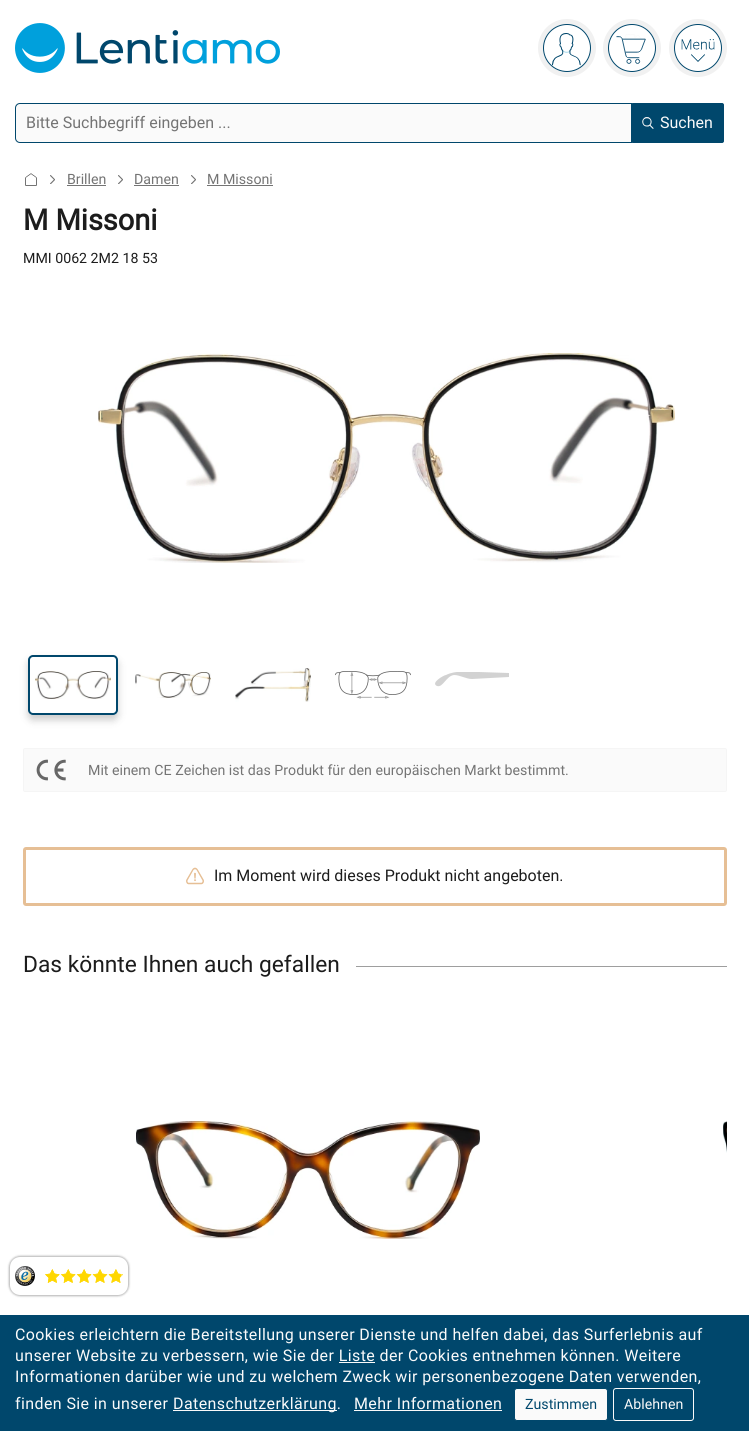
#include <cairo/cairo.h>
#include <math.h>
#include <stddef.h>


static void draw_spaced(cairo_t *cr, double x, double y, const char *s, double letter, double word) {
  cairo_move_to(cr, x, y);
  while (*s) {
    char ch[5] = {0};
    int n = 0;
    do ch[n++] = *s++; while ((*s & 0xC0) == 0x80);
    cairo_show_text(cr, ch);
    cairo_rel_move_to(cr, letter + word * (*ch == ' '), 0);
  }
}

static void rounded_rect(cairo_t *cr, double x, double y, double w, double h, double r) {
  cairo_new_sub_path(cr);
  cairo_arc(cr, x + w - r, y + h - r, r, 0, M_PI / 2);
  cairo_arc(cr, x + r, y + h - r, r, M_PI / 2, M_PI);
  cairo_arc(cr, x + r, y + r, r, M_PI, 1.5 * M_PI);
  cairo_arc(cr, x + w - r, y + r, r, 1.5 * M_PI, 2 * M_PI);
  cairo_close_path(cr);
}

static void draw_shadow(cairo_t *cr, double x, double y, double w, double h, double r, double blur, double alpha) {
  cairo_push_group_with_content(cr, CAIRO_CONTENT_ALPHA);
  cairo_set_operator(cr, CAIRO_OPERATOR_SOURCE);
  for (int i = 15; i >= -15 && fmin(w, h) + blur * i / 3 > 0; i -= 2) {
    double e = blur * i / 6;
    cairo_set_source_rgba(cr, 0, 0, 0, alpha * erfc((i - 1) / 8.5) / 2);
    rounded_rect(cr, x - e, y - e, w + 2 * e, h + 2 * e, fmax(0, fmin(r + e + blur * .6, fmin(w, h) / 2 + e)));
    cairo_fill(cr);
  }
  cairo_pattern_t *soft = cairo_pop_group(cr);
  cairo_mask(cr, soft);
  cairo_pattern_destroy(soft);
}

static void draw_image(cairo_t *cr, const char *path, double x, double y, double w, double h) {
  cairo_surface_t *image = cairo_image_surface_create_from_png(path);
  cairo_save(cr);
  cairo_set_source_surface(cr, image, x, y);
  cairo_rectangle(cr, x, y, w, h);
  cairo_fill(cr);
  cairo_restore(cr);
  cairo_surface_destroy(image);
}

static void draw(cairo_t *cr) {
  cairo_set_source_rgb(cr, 1, 1, 1);
  cairo_paint(cr);
  draw_image(cr, "images/1.png", 15, 23, 265, 50);
  cairo_arc(cr, 567, 48, 26.5, 0, 2 * M_PI);
  cairo_set_source_rgb(cr, 241 / 255.0, 241 / 255.0, 241 / 255.0);
  cairo_set_line_width(cr, 5);
  cairo_stroke(cr);
  cairo_set_source_rgb(cr, 1, 1, 1);
  cairo_arc(cr, 567, 48, 23.5, 0, 2 * M_PI);
  cairo_fill_preserve(cr);
  cairo_set_source_rgb(cr, 0, 71 / 255.0, 108 / 255.0);
  cairo_set_line_width(cr, 1);
  cairo_stroke(cr);
  draw_image(cr, "images/2.png", 552, 33, 29, 33);
  cairo_arc(cr, 632, 48, 26.5, 0, 2 * M_PI);
  cairo_set_source_rgb(cr, 241 / 255.0, 241 / 255.0, 241 / 255.0);
  cairo_set_line_width(cr, 5);
  cairo_stroke(cr);
  cairo_set_source_rgb(cr, 1, 1, 1);
  cairo_arc(cr, 632, 48, 23.5, 0, 2 * M_PI);
  cairo_fill_preserve(cr);
  cairo_set_source_rgb(cr, 0, 71 / 255.0, 108 / 255.0);
  cairo_set_line_width(cr, 1);
  cairo_stroke(cr);
  draw_image(cr, "images/3.png", 616, 34, 30, 30);
  cairo_arc(cr, 698, 48, 26.5, 0, 2 * M_PI);
  cairo_set_source_rgb(cr, 241 / 255.0, 241 / 255.0, 241 / 255.0);
  cairo_set_line_width(cr, 5);
  cairo_stroke(cr);
  cairo_set_source_rgb(cr, 1, 1, 1);
  cairo_arc(cr, 698, 48, 23.5, 0, 2 * M_PI);
  cairo_fill_preserve(cr);
  cairo_set_source_rgb(cr, 0, 71 / 255.0, 108 / 255.0);
  cairo_set_line_width(cr, 1);
  cairo_stroke(cr);
  draw_image(cr, "images/4.png", 681, 39, 34, 23);
  cairo_set_source_rgb(cr, 250 / 255.0, 250 / 255.0, 250 / 255.0);
  rounded_rect(cr, 15, 103, 709, 40, 2);
  cairo_fill(cr);
  cairo_set_source_rgb(cr, 0, 71 / 255.0, 108 / 255.0);
  rounded_rect(cr, 631.5, 103.5, 92, 39, 1.5);
  cairo_fill_preserve(cr);
  cairo_stroke(cr);
  cairo_set_source_rgb(cr, 250 / 255.0, 250 / 255.0, 250 / 255.0);
  cairo_new_path(cr);
  cairo_move_to(cr, 20, 103.5);
  cairo_line_to(cr, 631.5, 103.5);
  cairo_line_to(cr, 631.5, 142.5);
  cairo_line_to(cr, 20, 142.5);
  cairo_curve_to(cr, 17.5, 142.5, 15.5, 140.5, 15.5, 138);
  cairo_line_to(cr, 15.5, 108);
  cairo_curve_to(cr, 15.5, 105.5, 17.5, 103.5, 20, 103.5);
  cairo_close_path(cr);
  cairo_fill_preserve(cr);
  cairo_set_source_rgb(cr, 0, 71 / 255.0, 108 / 255.0);
  cairo_stroke(cr);
  draw_image(cr, "images/5.png", 642, 117, 12, 12);
  cairo_set_source_rgb(cr, 65 / 255.0, 65 / 255.0, 65 / 255.0);
  draw_shadow(cr, 9, 1256, 120, 40, 11, 1, 0.4);
  cairo_set_source_rgb(cr, 1, 1, 1);
  rounded_rect(cr, 10, 1257, 118, 38, 10);
  cairo_fill(cr);
  draw_image(cr, "images/6.png", 15, 1266, 20, 20);
  draw_image(cr, "images/7.png", 45, 1269, 78, 14);
  draw_image(cr, "images/8.png", 45, 1269, 76, 14);
  draw_image(cr, "images/9.png", 25, 173, 12, 13);
  draw_image(cr, "images/10.png", 50, 175, 5, 9);
  cairo_set_source_rgb(cr, 116 / 255.0, 116 / 255.0, 116 / 255.0);
  cairo_rectangle(cr, 67, 185, 39, 1);
  cairo_fill(cr);
  draw_image(cr, "images/10.png", 118, 175, 5, 9);
  cairo_rectangle(cr, 134, 185, 45, 1);
  cairo_fill(cr);
  draw_image(cr, "images/10.png", 191, 175, 5, 9);
  cairo_rectangle(cr, 207, 185, 66, 1);
  cairo_fill(cr);
  draw_image(cr, "images/11.png", 98, 353, 577, 210);
  cairo_save(cr);
  cairo_set_fill_rule(cr, CAIRO_FILL_RULE_EVEN_ODD);
  cairo_new_path(cr);
  cairo_move_to(cr, 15, 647);
  cairo_line_to(cr, 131, 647);
  cairo_line_to(cr, 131, 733);
  cairo_line_to(cr, 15, 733);
  cairo_close_path(cr);
  cairo_move_to(cr, 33, 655);
  cairo_line_to(cr, 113, 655);
  cairo_curve_to(cr, 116, 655, 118, 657, 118, 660);
  cairo_line_to(cr, 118, 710);
  cairo_curve_to(cr, 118, 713, 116, 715, 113, 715);
  cairo_line_to(cr, 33, 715);
  cairo_curve_to(cr, 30, 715, 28, 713, 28, 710);
  cairo_line_to(cr, 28, 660);
  cairo_curve_to(cr, 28, 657, 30, 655, 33, 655);
  cairo_close_path(cr);
  cairo_clip(cr);
  cairo_set_source_rgb(cr, 0, 0, 0);
  draw_shadow(cr, 28, 660, 90, 60, 5, 4, 0.2);
  cairo_restore(cr);
  rounded_rect(cr, 29, 656, 88, 58, 4);
  cairo_set_source_rgb(cr, 0, 71 / 255.0, 108 / 255.0);
  cairo_set_line_width(cr, 2);
  cairo_stroke(cr);
  draw_image(cr, "images/12.png", 35, 671, 76, 28);
  draw_image(cr, "images/13.png", 135, 672, 76, 26);
  draw_image(cr, "images/14.png", 235, 668, 76, 34);
  draw_image(cr, "images/15.png", 335, 671, 76, 28);
  cairo_save(cr);
  cairo_rectangle(cr, 435, 672, 76, 26);
  cairo_clip(cr);
  cairo_set_source_rgb(cr, 210 / 255.0, 210 / 255.0, 210 / 255.0);
  cairo_new_path(cr);
  cairo_move_to(cr, 509, 673);
  cairo_line_to(cr, 509, 677);
  cairo_line_to(cr, 472, 679);
  cairo_curve_to(cr, 466, 679, 460, 675, 454, 675);
  cairo_curve_to(cr, 446, 676, 443, 688, 437, 686);
  cairo_curve_to(cr, 430, 683, 444, 675, 446, 675);
  cairo_curve_to(cr, 456, 670, 468, 672, 479, 672);
  cairo_close_path(cr);
  cairo_fill(cr);
  cairo_restore(cr);
  cairo_set_source_rgb(cr, 250 / 255.0, 250 / 255.0, 250 / 255.0);
  rounded_rect(cr, 23.5, 748.5, 703, 43, 1.5);
  cairo_fill_preserve(cr);
  cairo_set_source_rgb(cr, 245 / 255.0, 245 / 255.0, 245 / 255.0);
  cairo_set_line_width(cr, 1);
  cairo_stroke(cr);
  draw_image(cr, "images/16.png", 36, 759, 30, 22);
  rounded_rect(cr, 24.5, 848.5, 701, 56, 1.5);
  cairo_set_source_rgb(cr, 230 / 255.0, 191 / 255.0, 149 / 255.0);
  cairo_set_line_width(cr, 3);
  cairo_stroke(cr);
  draw_image(cr, "images/17.png", 186, 867, 18, 18);
  cairo_set_source_rgb(cr, 158 / 255.0, 158 / 255.0, 158 / 255.0);
  cairo_rectangle(cr, 356, 966, 371, 1);
  cairo_fill(cr);
  draw_image(cr, "images/18.png", 136, 1121, 344, 118);
  draw_image(cr, "images/19.png", 723, 1121, 4, 32);
  cairo_set_source_rgb(cr, 0, 71 / 255.0, 108 / 255.0);
  cairo_rectangle(cr, 0, 1315, 749, 116);
  cairo_fill(cr);
  cairo_set_source_rgb(cr, 250 / 255.0, 250 / 255.0, 250 / 255.0);
  cairo_rectangle(cr, 339, 1362, 36, 1);
  cairo_fill(cr);
  cairo_rectangle(cr, 173, 1410, 164, 1);
  cairo_fill(cr);
  cairo_rectangle(cr, 354, 1410, 148, 1);
  cairo_fill(cr);
  rounded_rect(cr, 514.5, 1388.5, 93, 32, 2.5);
  cairo_fill_preserve(cr);
  cairo_set_source_rgb(cr, 0, 71 / 255.0, 108 / 255.0);
  cairo_set_line_width(cr, 1);
  cairo_stroke(cr);
  rounded_rect(cr, 613.5, 1388.5, 80, 32, 2.5);
  cairo_set_source_rgb(cr, 250 / 255.0, 250 / 255.0, 250 / 255.0);
  cairo_stroke(cr);
  cairo_select_font_face(cr, "Roboto", CAIRO_FONT_SLANT_NORMAL, CAIRO_FONT_WEIGHT_NORMAL);
  cairo_set_font_size(cr, 16);
  cairo_set_source_rgb(cr, 116 / 255.0, 116 / 255.0, 116 / 255.0);
  cairo_move_to(cr, 26, 128);
  cairo_show_text(cr, "Bitte Suchbegriff eingeben ...");
  cairo_set_source_rgb(cr, 250 / 255.0, 250 / 255.0, 250 / 255.0);
  cairo_move_to(cr, 660, 128);
  cairo_show_text(cr, "Suchen");
  cairo_set_font_size(cr, 14.2);
  cairo_set_source_rgb(cr, 116 / 255.0, 116 / 255.0, 116 / 255.0);
  cairo_move_to(cr, 67, 184);
  cairo_show_text(cr, "Brillen");
  cairo_move_to(cr, 134, 184);
  cairo_show_text(cr, "Damen");
  cairo_move_to(cr, 207, 184);
  cairo_show_text(cr, "M Missoni");
  cairo_select_font_face(cr, "Roboto", CAIRO_FONT_SLANT_NORMAL, CAIRO_FONT_WEIGHT_BOLD);
  cairo_set_font_size(cr, 29);
  cairo_set_source_rgb(cr, 28 / 255.0, 28 / 255.0, 28 / 255.0);
  cairo_move_to(cr, 23, 230);
  cairo_show_text(cr, "M Missoni");
  cairo_select_font_face(cr, "Roboto", CAIRO_FONT_SLANT_NORMAL, CAIRO_FONT_WEIGHT_NORMAL);
  cairo_set_font_size(cr, 14.2);
  cairo_move_to(cr, 23, 263);
  cairo_show_text(cr, "MMI 0062 2M2 18 53");
  cairo_set_source_rgb(cr, 116 / 255.0, 116 / 255.0, 116 / 255.0);
  cairo_move_to(cr, 88, 775);
  cairo_show_text(cr, "Mit einem CE Zeichen ist das Produkt für den europäischen Markt bestimmt.");
  cairo_set_font_size(cr, 16);
  cairo_set_source_rgb(cr, 28 / 255.0, 28 / 255.0, 28 / 255.0);
  cairo_move_to(cr, 214, 881);
  cairo_show_text(cr, "Im Moment wird dieses Produkt nicht angeboten.");
  cairo_set_font_size(cr, 22.75);
  cairo_move_to(cr, 23, 972);
  cairo_show_text(cr, "Das könnte Ihnen auch gefallen");
  cairo_set_font_size(cr, 16);
  cairo_set_source_rgb(cr, 250 / 255.0, 250 / 255.0, 250 / 255.0);
  draw_spaced(cr, 15, 1340, "Cookies erleichtern die Bereitstellung unserer Dienste und helfen dabei, das Surferlebnis auf", 0.4, 0);
  draw_spaced(cr, 15, 1361, "unserer Website zu verbessern, wie Sie der Liste der Cookies entnehmen können. Weitere", 0.4, 0);
  draw_spaced(cr, 15, 1382, "Informationen darüber wie und zu welchem Zweck wir personenbezogene Daten verwenden,", 0.4, 0);
  draw_spaced(cr, 15, 1409, "finden Sie in unserer", 0.4, 0);
  draw_spaced(cr, 173, 1409, "Datenschutzerklärung.", 0.4, 0);
  draw_spaced(cr, 354, 1409, "Mehr Informationen", 0.4, 0);
  cairo_set_font_size(cr, 14.2);
  cairo_set_source_rgb(cr, 0, 71 / 255.0, 108 / 255.0);
  cairo_move_to(cr, 525, 1409);
  cairo_show_text(cr, "Zustimmen");
  cairo_set_source_rgb(cr, 250 / 255.0, 250 / 255.0, 250 / 255.0);
  cairo_move_to(cr, 624, 1409);
  cairo_show_text(cr, "Ablehnen");
}

int main(void) {
  cairo_surface_t *surface = cairo_image_surface_create(CAIRO_FORMAT_RGB24, 749, 1431);
  cairo_t *cr = cairo_create(surface);
  cairo_font_options_t *options = cairo_font_options_create();
  cairo_font_options_set_hint_metrics(options, CAIRO_HINT_METRICS_OFF);
  cairo_font_options_set_hint_style(options, CAIRO_HINT_STYLE_NONE);
  cairo_set_font_options(cr, options);
  cairo_set_miter_limit(cr, 4);
  draw(cr);
  cairo_surface_write_to_png(surface, "out.png");
  cairo_font_options_destroy(options);
  cairo_destroy(cr);
  cairo_surface_destroy(surface);
  return 0;
}
